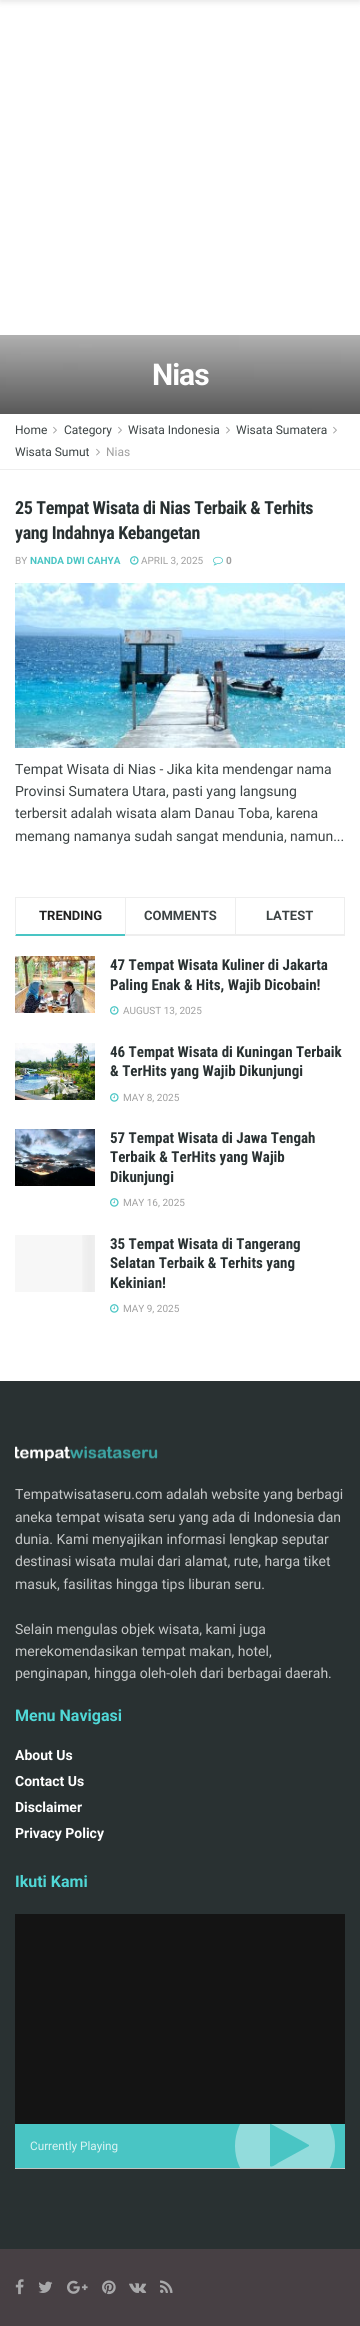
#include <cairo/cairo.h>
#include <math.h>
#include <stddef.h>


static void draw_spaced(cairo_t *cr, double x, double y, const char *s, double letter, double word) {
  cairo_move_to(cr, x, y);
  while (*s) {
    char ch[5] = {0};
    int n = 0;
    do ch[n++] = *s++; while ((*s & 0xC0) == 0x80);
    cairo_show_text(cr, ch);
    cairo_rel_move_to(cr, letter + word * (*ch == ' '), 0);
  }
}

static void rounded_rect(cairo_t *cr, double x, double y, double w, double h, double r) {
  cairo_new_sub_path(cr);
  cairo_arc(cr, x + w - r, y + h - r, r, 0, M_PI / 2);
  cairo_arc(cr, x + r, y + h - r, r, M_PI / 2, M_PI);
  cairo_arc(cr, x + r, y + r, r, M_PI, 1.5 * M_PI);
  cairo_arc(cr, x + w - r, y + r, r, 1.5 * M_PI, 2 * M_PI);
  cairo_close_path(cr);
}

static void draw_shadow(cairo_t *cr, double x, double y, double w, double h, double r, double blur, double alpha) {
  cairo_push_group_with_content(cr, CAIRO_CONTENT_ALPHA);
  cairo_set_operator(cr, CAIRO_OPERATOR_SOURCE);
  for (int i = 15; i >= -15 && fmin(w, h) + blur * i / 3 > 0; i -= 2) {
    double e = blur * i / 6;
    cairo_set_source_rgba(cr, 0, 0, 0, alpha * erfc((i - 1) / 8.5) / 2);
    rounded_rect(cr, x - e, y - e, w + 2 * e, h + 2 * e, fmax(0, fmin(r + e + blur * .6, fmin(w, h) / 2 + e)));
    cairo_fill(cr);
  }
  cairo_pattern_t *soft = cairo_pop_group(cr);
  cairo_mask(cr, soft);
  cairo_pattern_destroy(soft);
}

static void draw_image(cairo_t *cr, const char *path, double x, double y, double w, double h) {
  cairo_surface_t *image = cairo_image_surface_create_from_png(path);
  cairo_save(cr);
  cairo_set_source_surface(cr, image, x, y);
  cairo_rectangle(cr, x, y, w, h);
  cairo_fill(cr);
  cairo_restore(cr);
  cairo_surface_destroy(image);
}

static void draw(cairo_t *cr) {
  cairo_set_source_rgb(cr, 1, 1, 1);
  cairo_paint(cr);
  cairo_set_source_rgb(cr, 0, 0, 0);
  draw_shadow(cr, 0, -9, 360, 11, 0, 3, 0.1);
  draw_image(cr, "images/1.png", 0, 335, 360, 79);
  cairo_set_source_rgb(cr, 238 / 255.0, 238 / 255.0, 238 / 255.0);
  cairo_rectangle(cr, 0, 469, 360, 1);
  cairo_fill(cr);
  draw_image(cr, "images/2.png", 53, 426, 4, 8);
  draw_image(cr, "images/2.png", 118, 426, 4, 8);
  draw_image(cr, "images/2.png", 226, 426, 4, 8);
  draw_image(cr, "images/2.png", 333, 426, 4, 8);
  draw_image(cr, "images/2.png", 96, 448, 4, 8);
  draw_image(cr, "images/3.png", 130, 556, 9, 9);
  draw_image(cr, "images/4.png", 213, 556, 10, 10);
  draw_image(cr, "images/5.png", 15, 583, 330, 165);
  cairo_rectangle(cr, 15, 897, 330, 1);
  cairo_fill(cr);
  cairo_set_source_rgb(cr, 73 / 255.0, 197 / 255.0, 196 / 255.0);
  cairo_new_path(cr);
  cairo_move_to(cr, 125, 936);
  cairo_line_to(cr, 15, 936);
  cairo_line_to(cr, 16, 934);
  cairo_line_to(cr, 125, 934);
  cairo_close_path(cr);
  cairo_fill(cr);
  cairo_set_source_rgb(cr, 238 / 255.0, 238 / 255.0, 238 / 255.0);
  cairo_new_path(cr);
  cairo_move_to(cr, 15, 936);
  cairo_line_to(cr, 15, 897);
  cairo_line_to(cr, 16, 898);
  cairo_line_to(cr, 16, 934);
  cairo_close_path(cr);
  cairo_fill(cr);
  cairo_rectangle(cr, 125, 934, 110, 2);
  cairo_fill(cr);
  cairo_rectangle(cr, 125, 897, 1, 39);
  cairo_fill(cr);
  cairo_rectangle(cr, 344, 897, 1, 39);
  cairo_fill(cr);
  cairo_rectangle(cr, 235, 934, 110, 2);
  cairo_fill(cr);
  cairo_rectangle(cr, 235, 897, 1, 39);
  cairo_fill(cr);
  draw_image(cr, "images/6.png", 15, 956, 80, 57);
  draw_image(cr, "images/3.png", 110, 1006, 9, 9);
  draw_image(cr, "images/7.png", 15, 1043, 80, 57);
  draw_image(cr, "images/3.png", 110, 1093, 9, 9);
  draw_image(cr, "images/8.png", 15, 1129, 80, 57);
  draw_image(cr, "images/3.png", 110, 1198, 9, 9);
  cairo_set_source_rgb(cr, 247 / 255.0, 247 / 255.0, 247 / 255.0);
  cairo_rectangle(cr, 15, 1235, 67, 57);
  cairo_fill(cr);
  draw_image(cr, "images/9.png", 82, 1235, 13, 57);
  draw_image(cr, "images/3.png", 110, 1304, 9, 9);
  cairo_set_source_rgb(cr, 41 / 255.0, 49 / 255.0, 50 / 255.0);
  cairo_rectangle(cr, 0, 1381, 360, 868);
  cairo_fill(cr);
  draw_image(cr, "images/10.png", 15, 1446, 143, 15);
  cairo_set_source_rgb(cr, 20 / 255.0, 20 / 255.0, 20 / 255.0);
  cairo_rectangle(cr, 15, 1914, 330, 210);
  cairo_fill(cr);
  cairo_set_source_rgb(cr, 224 / 255.0, 224 / 255.0, 224 / 255.0);
  cairo_rectangle(cr, 15, 2168, 330, 1);
  cairo_fill(cr);
  cairo_save(cr);
  cairo_rectangle(cr, 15, 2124, 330, 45);
  cairo_clip(cr);
  cairo_set_source_rgb(cr, 0, 0, 0);
  draw_shadow(cr, 15, 2127, 330, 44, 0, 5, 0.2);
  cairo_restore(cr);
  cairo_set_source_rgb(cr, 73 / 255.0, 197 / 255.0, 196 / 255.0);
  cairo_rectangle(cr, 15, 2124, 330, 44);
  cairo_fill(cr);
  cairo_save(cr);
  cairo_rectangle(cr, 15, 2124, 330, 44);
  cairo_clip(cr);
  cairo_set_source_rgb(cr, 146 / 255.0, 220 / 255.0, 220 / 255.0);
  cairo_arc(cr, 285, 2146, 50, 0, 2 * M_PI);
  cairo_fill(cr);
  cairo_restore(cr);
  cairo_new_path(cr);
  cairo_move_to(cr, 309, 2146);
  cairo_line_to(cr, 278, 2163);
  cairo_curve_to(cr, 277, 2164, 271, 2168, 270, 2166);
  cairo_line_to(cr, 270, 2124);
  cairo_line_to(cr, 271, 2124);
  cairo_line_to(cr, 302, 2141);
  cairo_line_to(cr, 309, 2145);
  cairo_close_path(cr);
  cairo_fill(cr);
  cairo_set_source_rgb(cr, 71 / 255.0, 64 / 255.0, 68 / 255.0);
  cairo_rectangle(cr, 0, 2249, 360, 77);
  cairo_fill(cr);
  draw_image(cr, "images/11.png", 15, 2279, 9, 16);
  draw_image(cr, "images/12.png", 38, 2281, 15, 12);
  draw_image(cr, "images/13.png", 67, 2280, 21, 14);
  draw_image(cr, "images/14.png", 102, 2280, 14, 15);
  draw_image(cr, "images/15.png", 129, 2283, 18, 10);
  draw_image(cr, "images/16.png", 160, 2280, 13, 13);
  cairo_select_font_face(cr, "Roboto", CAIRO_FONT_SLANT_NORMAL, CAIRO_FONT_WEIGHT_BOLD);
  cairo_set_font_size(cr, 30);
  cairo_set_source_rgb(cr, 1, 1, 1);
  draw_spaced(cr, 152, 385, "Nias", -1, 0);
  cairo_select_font_face(cr, "Roboto", CAIRO_FONT_SLANT_NORMAL, CAIRO_FONT_WEIGHT_NORMAL);
  cairo_set_font_size(cr, 12);
  cairo_set_source_rgb(cr, 60 / 255.0, 67 / 255.0, 68 / 255.0);
  cairo_move_to(cr, 15, 434);
  cairo_show_text(cr, "Home");
  cairo_move_to(cr, 64, 434);
  cairo_show_text(cr, "Category");
  cairo_move_to(cr, 128, 434);
  cairo_show_text(cr, "Wisata Indonesia");
  cairo_move_to(cr, 236, 434);
  cairo_show_text(cr, "Wisata Sumatera");
  cairo_move_to(cr, 15, 456);
  cairo_show_text(cr, "Wisata Sumut");
  cairo_set_source_rgb(cr, 160 / 255.0, 160 / 255.0, 160 / 255.0);
  cairo_move_to(cr, 106, 456);
  cairo_show_text(cr, "Nias");
  cairo_select_font_face(cr, "Roboto Condensed", CAIRO_FONT_SLANT_NORMAL, CAIRO_FONT_WEIGHT_BOLD);
  cairo_set_font_size(cr, 18);
  cairo_set_source_rgb(cr, 41 / 255.0, 49 / 255.0, 50 / 255.0);
  draw_spaced(cr, 15, 514, "25 Tempat Wisata di Nias Terbaik & Terhits", -0.35, 0);
  draw_spaced(cr, 15, 539, "yang Indahnya Kebangetan", -0.35, 0);
  cairo_select_font_face(cr, "Roboto", CAIRO_FONT_SLANT_NORMAL, CAIRO_FONT_WEIGHT_NORMAL);
  cairo_set_font_size(cr, 10);
  cairo_set_source_rgb(cr, 160 / 255.0, 160 / 255.0, 160 / 255.0);
  cairo_move_to(cr, 15, 564);
  cairo_show_text(cr, "BY");
  cairo_select_font_face(cr, "Roboto", CAIRO_FONT_SLANT_NORMAL, CAIRO_FONT_WEIGHT_BOLD);
  cairo_set_source_rgb(cr, 73 / 255.0, 197 / 255.0, 196 / 255.0);
  cairo_move_to(cr, 30, 564);
  cairo_show_text(cr, "NANDA DWI CAHYA");
  cairo_select_font_face(cr, "Roboto", CAIRO_FONT_SLANT_NORMAL, CAIRO_FONT_WEIGHT_NORMAL);
  cairo_set_source_rgb(cr, 160 / 255.0, 160 / 255.0, 160 / 255.0);
  cairo_move_to(cr, 141, 564);
  cairo_show_text(cr, "APRIL 3, 2025");
  cairo_select_font_face(cr, "Roboto", CAIRO_FONT_SLANT_NORMAL, CAIRO_FONT_WEIGHT_BOLD);
  cairo_move_to(cr, 226, 564);
  cairo_show_text(cr, "0");
  cairo_select_font_face(cr, "Roboto", CAIRO_FONT_SLANT_NORMAL, CAIRO_FONT_WEIGHT_NORMAL);
  cairo_set_font_size(cr, 14);
  cairo_set_source_rgb(cr, 60 / 255.0, 67 / 255.0, 68 / 255.0);
  cairo_move_to(cr, 15, 774);
  cairo_show_text(cr, "Tempat Wisata di Nias - Jika kita mendengar nama");
  cairo_move_to(cr, 15, 796);
  cairo_show_text(cr, "Provinsi Sumatera Utara, pasti yang langsung");
  cairo_move_to(cr, 15, 818);
  cairo_show_text(cr, "terbersit adalah wisata alam Danau Toba, karena");
  cairo_move_to(cr, 15, 841);
  cairo_show_text(cr, "memang namanya sudah sangat mendunia, namun...");
  cairo_select_font_face(cr, "Roboto", CAIRO_FONT_SLANT_NORMAL, CAIRO_FONT_WEIGHT_BOLD);
  cairo_set_font_size(cr, 13);
  cairo_set_source_rgb(cr, 33 / 255.0, 33 / 255.0, 33 / 255.0);
  cairo_move_to(cr, 39, 920);
  cairo_show_text(cr, "TRENDING");
  cairo_set_source_rgb(cr, 60 / 255.0, 67 / 255.0, 68 / 255.0);
  cairo_move_to(cr, 144, 920);
  cairo_show_text(cr, "COMMENTS");
  cairo_move_to(cr, 266, 920);
  cairo_show_text(cr, "LATEST");
  cairo_select_font_face(cr, "Roboto Condensed", CAIRO_FONT_SLANT_NORMAL, CAIRO_FONT_WEIGHT_BOLD);
  cairo_set_font_size(cr, 15);
  cairo_set_source_rgb(cr, 41 / 255.0, 49 / 255.0, 50 / 255.0);
  cairo_move_to(cr, 110, 970);
  cairo_show_text(cr, "47 Tempat Wisata Kuliner di Jakarta");
  cairo_move_to(cr, 110, 990);
  cairo_show_text(cr, "Paling Enak & Hits, Wajib Dicobain!");
  cairo_select_font_face(cr, "Roboto", CAIRO_FONT_SLANT_NORMAL, CAIRO_FONT_WEIGHT_NORMAL);
  cairo_set_font_size(cr, 10);
  cairo_set_source_rgb(cr, 160 / 255.0, 160 / 255.0, 160 / 255.0);
  cairo_move_to(cr, 123, 1014);
  cairo_show_text(cr, "AUGUST 13, 2025");
  cairo_select_font_face(cr, "Roboto Condensed", CAIRO_FONT_SLANT_NORMAL, CAIRO_FONT_WEIGHT_BOLD);
  cairo_set_font_size(cr, 15);
  cairo_set_source_rgb(cr, 41 / 255.0, 49 / 255.0, 50 / 255.0);
  cairo_move_to(cr, 110, 1057);
  cairo_show_text(cr, "46 Tempat Wisata di Kuningan Terbaik");
  cairo_move_to(cr, 110, 1076);
  cairo_show_text(cr, "& TerHits yang Wajib Dikunjungi");
  cairo_select_font_face(cr, "Roboto", CAIRO_FONT_SLANT_NORMAL, CAIRO_FONT_WEIGHT_NORMAL);
  cairo_set_font_size(cr, 10);
  cairo_set_source_rgb(cr, 160 / 255.0, 160 / 255.0, 160 / 255.0);
  cairo_move_to(cr, 123, 1101);
  cairo_show_text(cr, "MAY 8, 2025");
  cairo_select_font_face(cr, "Roboto Condensed", CAIRO_FONT_SLANT_NORMAL, CAIRO_FONT_WEIGHT_BOLD);
  cairo_set_font_size(cr, 15);
  cairo_set_source_rgb(cr, 41 / 255.0, 49 / 255.0, 50 / 255.0);
  cairo_move_to(cr, 110, 1143);
  cairo_show_text(cr, "57 Tempat Wisata di Jawa Tengah");
  cairo_move_to(cr, 110, 1162);
  cairo_show_text(cr, "Terbaik & TerHits yang Wajib");
  cairo_move_to(cr, 110, 1182);
  cairo_show_text(cr, "Dikunjungi");
  cairo_select_font_face(cr, "Roboto", CAIRO_FONT_SLANT_NORMAL, CAIRO_FONT_WEIGHT_NORMAL);
  cairo_set_font_size(cr, 10);
  cairo_set_source_rgb(cr, 160 / 255.0, 160 / 255.0, 160 / 255.0);
  cairo_move_to(cr, 123, 1206);
  cairo_show_text(cr, "MAY 16, 2025");
  cairo_select_font_face(cr, "Roboto Condensed", CAIRO_FONT_SLANT_NORMAL, CAIRO_FONT_WEIGHT_BOLD);
  cairo_set_font_size(cr, 15);
  cairo_set_source_rgb(cr, 41 / 255.0, 49 / 255.0, 50 / 255.0);
  cairo_move_to(cr, 110, 1249);
  cairo_show_text(cr, "35 Tempat Wisata di Tangerang");
  cairo_move_to(cr, 110, 1268);
  cairo_show_text(cr, "Selatan Terbaik & Terhits yang");
  cairo_move_to(cr, 110, 1288);
  cairo_show_text(cr, "Kekinian!");
  cairo_select_font_face(cr, "Roboto", CAIRO_FONT_SLANT_NORMAL, CAIRO_FONT_WEIGHT_NORMAL);
  cairo_set_font_size(cr, 10);
  cairo_set_source_rgb(cr, 160 / 255.0, 160 / 255.0, 160 / 255.0);
  cairo_move_to(cr, 123, 1312);
  cairo_show_text(cr, "MAY 9, 2025");
  cairo_set_font_size(cr, 14);
  cairo_set_source_rgb(cr, 198 / 255.0, 200 / 255.0, 200 / 255.0);
  cairo_move_to(cr, 15, 1499);
  cairo_show_text(cr, "Tempatwisataseru.com adalah website yang berbagi");
  cairo_move_to(cr, 15, 1522);
  cairo_show_text(cr, "aneka tempat wisata seru yang ada di Indonesia dan");
  cairo_move_to(cr, 15, 1544);
  cairo_show_text(cr, "dunia. Kami menyajikan informasi lengkap seputar");
  cairo_move_to(cr, 15, 1566);
  cairo_show_text(cr, "destinasi wisata mulai dari alamat, rute, harga tiket");
  cairo_move_to(cr, 15, 1589);
  cairo_show_text(cr, "masuk, fasilitas hingga tips liburan seru.");
  cairo_move_to(cr, 15, 1634);
  cairo_show_text(cr, "Selain mengulas objek wisata, kami juga");
  cairo_move_to(cr, 15, 1656);
  cairo_show_text(cr, "merekomendasikan tempat makan, hotel,");
  cairo_move_to(cr, 15, 1678);
  cairo_show_text(cr, "penginapan, hingga oleh-oleh dari berbagai daerah.");
  cairo_select_font_face(cr, "Roboto", CAIRO_FONT_SLANT_NORMAL, CAIRO_FONT_WEIGHT_BOLD);
  cairo_set_font_size(cr, 16);
  cairo_set_source_rgb(cr, 80 / 255.0, 216 / 255.0, 215 / 255.0);
  cairo_move_to(cr, 15, 1721);
  cairo_show_text(cr, "Menu Navigasi");
  cairo_set_font_size(cr, 14);
  cairo_set_source_rgb(cr, 1, 1, 1);
  cairo_move_to(cr, 15, 1760);
  cairo_show_text(cr, "About Us");
  cairo_move_to(cr, 15, 1786);
  cairo_show_text(cr, "Contact Us");
  cairo_move_to(cr, 15, 1812);
  cairo_show_text(cr, "Disclaimer");
  cairo_move_to(cr, 15, 1838);
  cairo_show_text(cr, "Privacy Policy");
  cairo_set_font_size(cr, 16);
  cairo_set_source_rgb(cr, 80 / 255.0, 216 / 255.0, 215 / 255.0);
  cairo_move_to(cr, 15, 1887);
  cairo_show_text(cr, "Ikuti Kami");
  cairo_select_font_face(cr, "Roboto", CAIRO_FONT_SLANT_NORMAL, CAIRO_FONT_WEIGHT_NORMAL);
  cairo_set_font_size(cr, 11.75);
  cairo_set_source_rgb(cr, 219 / 255.0, 243 / 255.0, 243 / 255.0);
  cairo_move_to(cr, 30, 2150);
  cairo_show_text(cr, "Currently Playing");
}

int main(void) {
  cairo_surface_t *surface = cairo_image_surface_create(CAIRO_FORMAT_RGB24, 360, 2326);
  cairo_t *cr = cairo_create(surface);
  cairo_font_options_t *options = cairo_font_options_create();
  cairo_font_options_set_hint_metrics(options, CAIRO_HINT_METRICS_OFF);
  cairo_font_options_set_hint_style(options, CAIRO_HINT_STYLE_NONE);
  cairo_set_font_options(cr, options);
  cairo_set_miter_limit(cr, 4);
  draw(cr);
  cairo_surface_write_to_png(surface, "out.png");
  cairo_font_options_destroy(options);
  cairo_destroy(cr);
  cairo_surface_destroy(surface);
  return 0;
}
